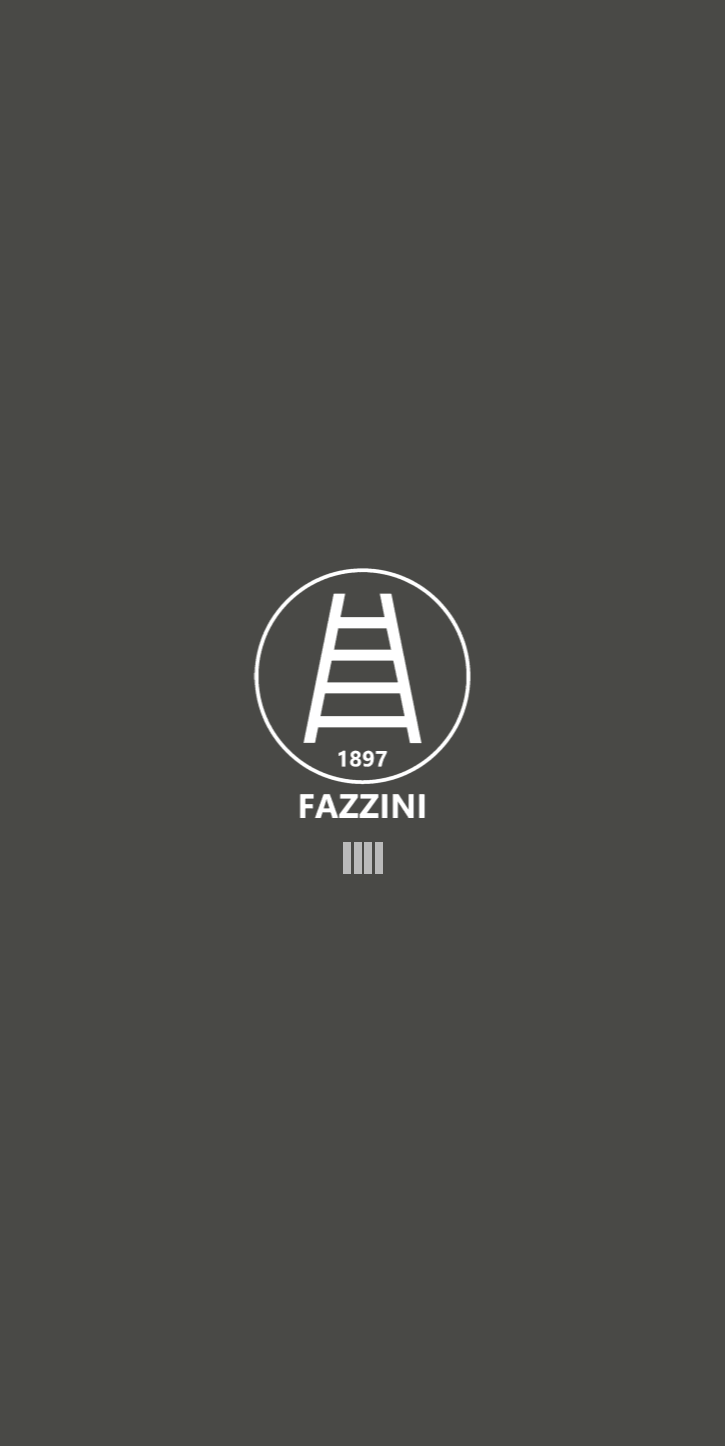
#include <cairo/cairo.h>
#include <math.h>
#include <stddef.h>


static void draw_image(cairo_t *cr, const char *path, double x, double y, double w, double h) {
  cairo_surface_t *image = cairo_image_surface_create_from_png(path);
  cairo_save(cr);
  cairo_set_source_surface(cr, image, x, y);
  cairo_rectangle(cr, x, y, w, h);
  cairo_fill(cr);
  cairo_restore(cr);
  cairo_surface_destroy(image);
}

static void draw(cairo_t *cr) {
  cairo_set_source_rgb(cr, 73 / 255.0, 73 / 255.0, 70 / 255.0);
  cairo_paint(cr);
  draw_image(cr, "images/1.png", 253, 568, 218, 250);
  cairo_set_source_rgb(cr, 186 / 255.0, 186 / 255.0, 186 / 255.0);
  cairo_rectangle(cr, 343, 842, 8, 32);
  cairo_fill(cr);
  cairo_rectangle(cr, 354, 842, 8, 32);
  cairo_fill(cr);
  cairo_rectangle(cr, 364, 842, 8, 32);
  cairo_fill(cr);
  cairo_rectangle(cr, 375, 842, 8, 32);
  cairo_fill(cr);
}

int main(void) {
  cairo_surface_t *surface = cairo_image_surface_create(CAIRO_FORMAT_RGB24, 725, 1446);
  cairo_t *cr = cairo_create(surface);
  cairo_font_options_t *options = cairo_font_options_create();
  cairo_font_options_set_hint_metrics(options, CAIRO_HINT_METRICS_OFF);
  cairo_font_options_set_hint_style(options, CAIRO_HINT_STYLE_NONE);
  cairo_set_font_options(cr, options);
  cairo_set_miter_limit(cr, 4);
  draw(cr);
  cairo_surface_write_to_png(surface, "out.png");
  cairo_font_options_destroy(options);
  cairo_destroy(cr);
  cairo_surface_destroy(surface);
  return 0;
}
